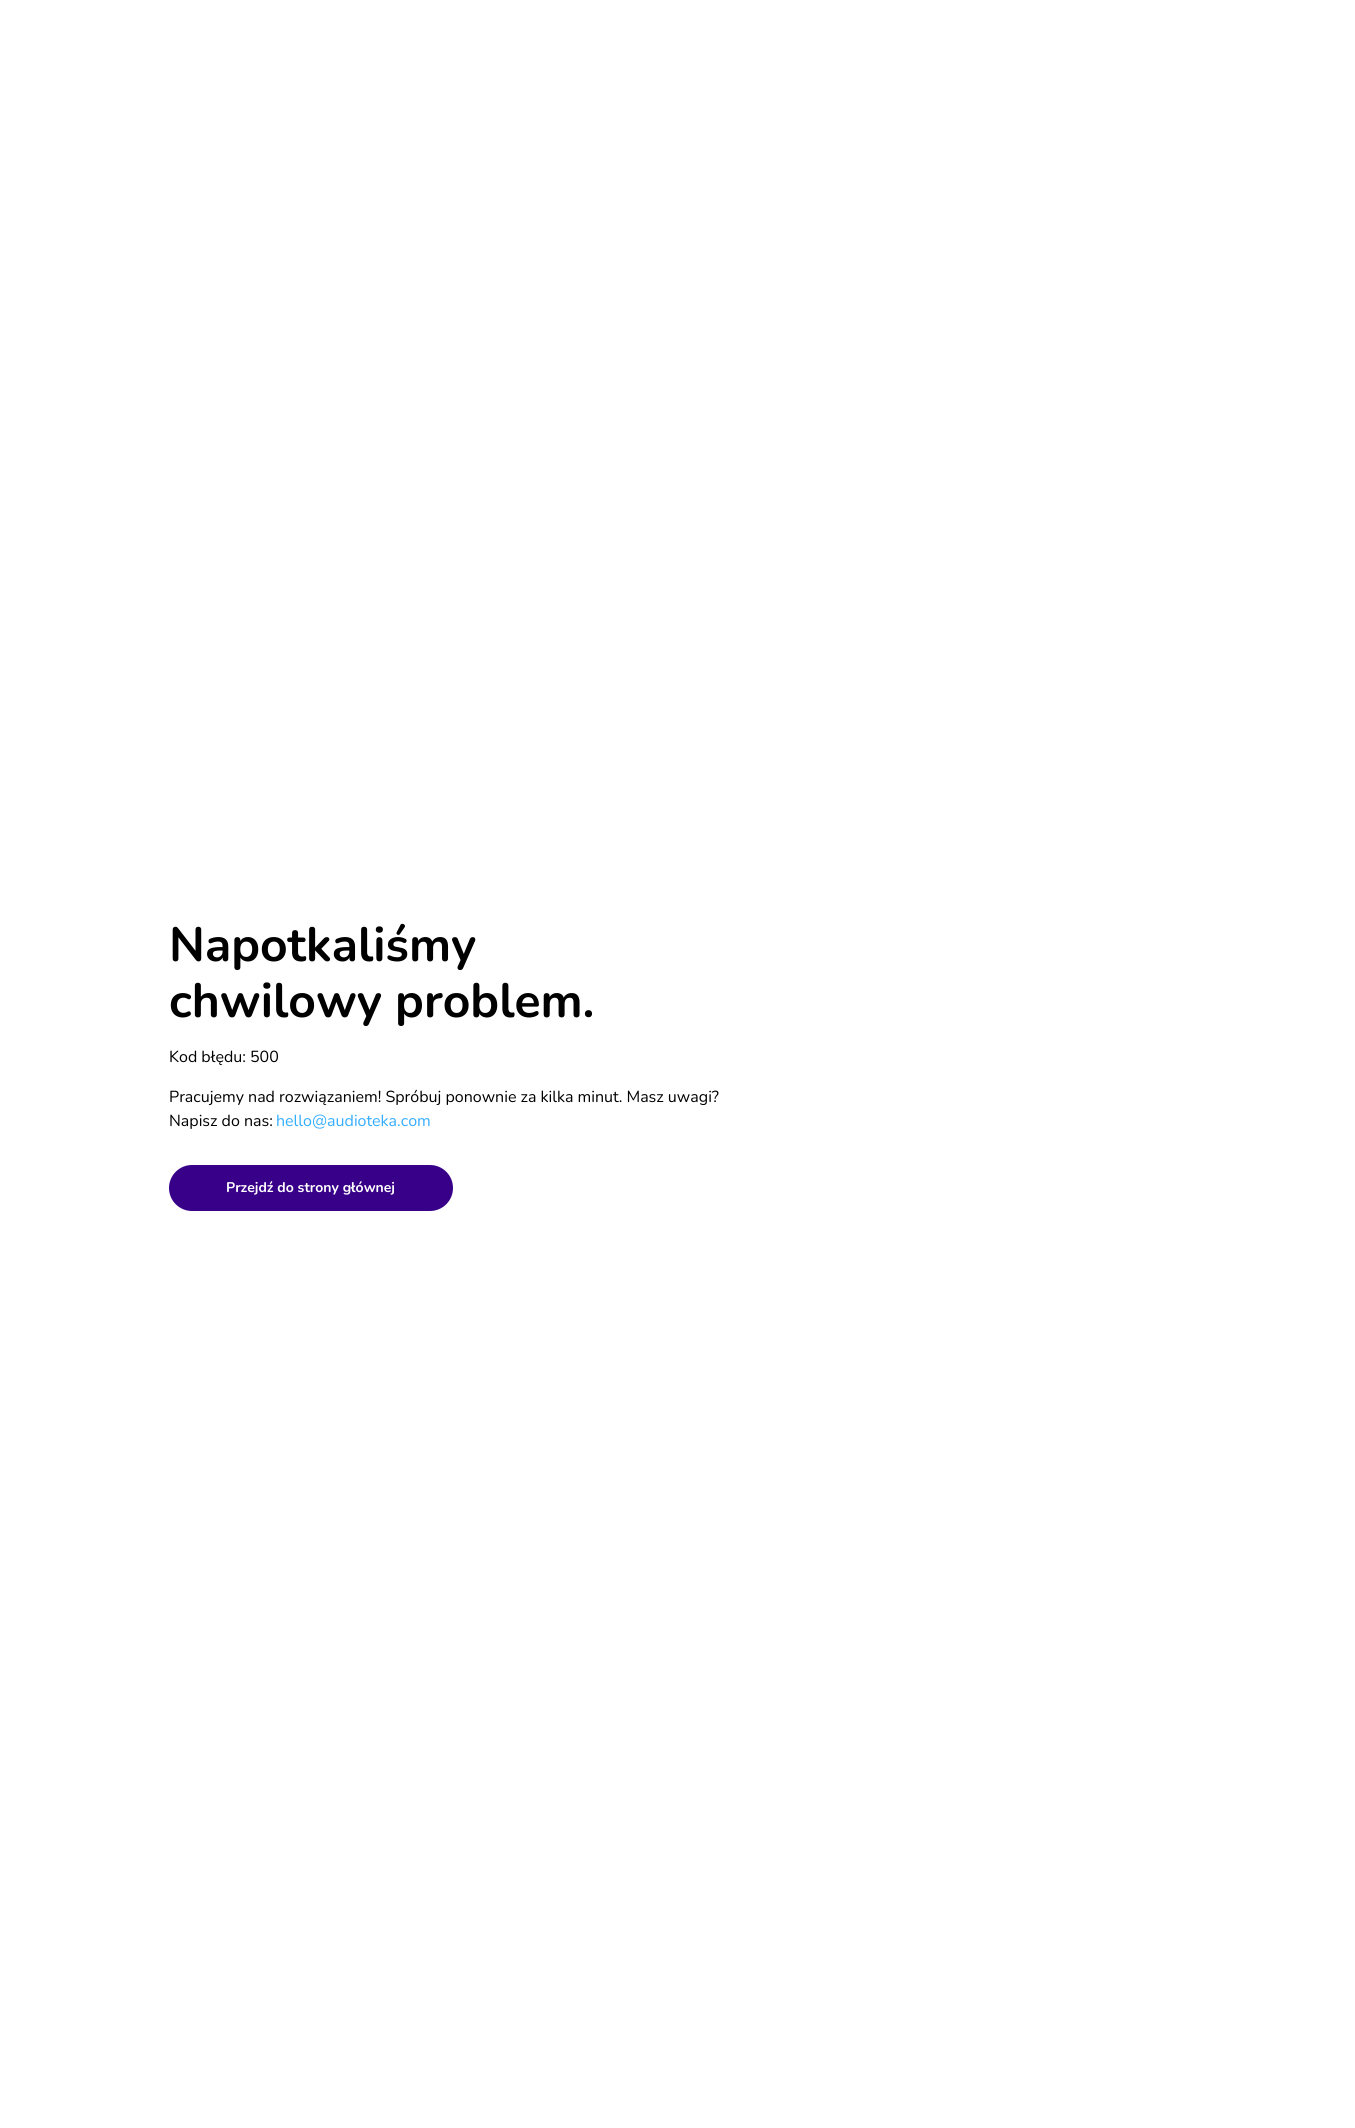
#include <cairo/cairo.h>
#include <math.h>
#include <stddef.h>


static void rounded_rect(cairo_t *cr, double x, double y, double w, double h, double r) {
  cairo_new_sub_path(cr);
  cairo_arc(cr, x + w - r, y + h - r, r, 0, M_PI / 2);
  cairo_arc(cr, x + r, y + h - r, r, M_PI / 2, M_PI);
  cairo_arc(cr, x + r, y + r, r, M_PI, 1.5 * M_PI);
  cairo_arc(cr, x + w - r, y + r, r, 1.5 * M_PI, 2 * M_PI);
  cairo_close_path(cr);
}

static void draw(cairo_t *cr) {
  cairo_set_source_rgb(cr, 1, 1, 1);
  cairo_paint(cr);
  cairo_set_source_rgb(cr, 56 / 255.0, 0, 137 / 255.0);
  rounded_rect(cr, 169, 1165, 284, 46, 23);
  cairo_fill(cr);
  cairo_select_font_face(cr, "Nunito", CAIRO_FONT_SLANT_NORMAL, CAIRO_FONT_WEIGHT_BOLD);
  cairo_set_font_size(cr, 48);
  cairo_set_source_rgb(cr, 0, 0, 0);
  cairo_move_to(cr, 169, 961);
  cairo_show_text(cr, "Napotkaliśmy");
  cairo_move_to(cr, 169, 1017);
  cairo_show_text(cr, "chwilowy problem.");
  cairo_select_font_face(cr, "Nunito", CAIRO_FONT_SLANT_NORMAL, CAIRO_FONT_WEIGHT_NORMAL);
  cairo_set_font_size(cr, 16);
  cairo_move_to(cr, 169, 1062);
  cairo_show_text(cr, "Kod błędu: 500");
  cairo_move_to(cr, 169, 1102);
  cairo_show_text(cr, "Pracujemy nad rozwiązaniem! Spróbuj ponownie za kilka minut. Masz uwagi?");
  cairo_move_to(cr, 169, 1126);
  cairo_show_text(cr, "Napisz do nas:");
  cairo_set_source_rgb(cr, 51 / 255.0, 173 / 255.0, 1);
  cairo_move_to(cr, 276, 1126);
  cairo_show_text(cr, "hello@audioteka.com");
  cairo_select_font_face(cr, "Nunito", CAIRO_FONT_SLANT_NORMAL, CAIRO_FONT_WEIGHT_BOLD);
  cairo_set_font_size(cr, 14);
  cairo_set_source_rgb(cr, 1, 1, 1);
  cairo_move_to(cr, 226, 1192);
  cairo_show_text(cr, "Przejdź do strony głównej");
}

int main(void) {
  cairo_surface_t *surface = cairo_image_surface_create(CAIRO_FORMAT_RGB24, 1355, 2128);
  cairo_t *cr = cairo_create(surface);
  cairo_font_options_t *options = cairo_font_options_create();
  cairo_font_options_set_hint_metrics(options, CAIRO_HINT_METRICS_OFF);
  cairo_font_options_set_hint_style(options, CAIRO_HINT_STYLE_NONE);
  cairo_set_font_options(cr, options);
  cairo_set_miter_limit(cr, 4);
  draw(cr);
  cairo_surface_write_to_png(surface, "out.png");
  cairo_font_options_destroy(options);
  cairo_destroy(cr);
  cairo_surface_destroy(surface);
  return 0;
}
